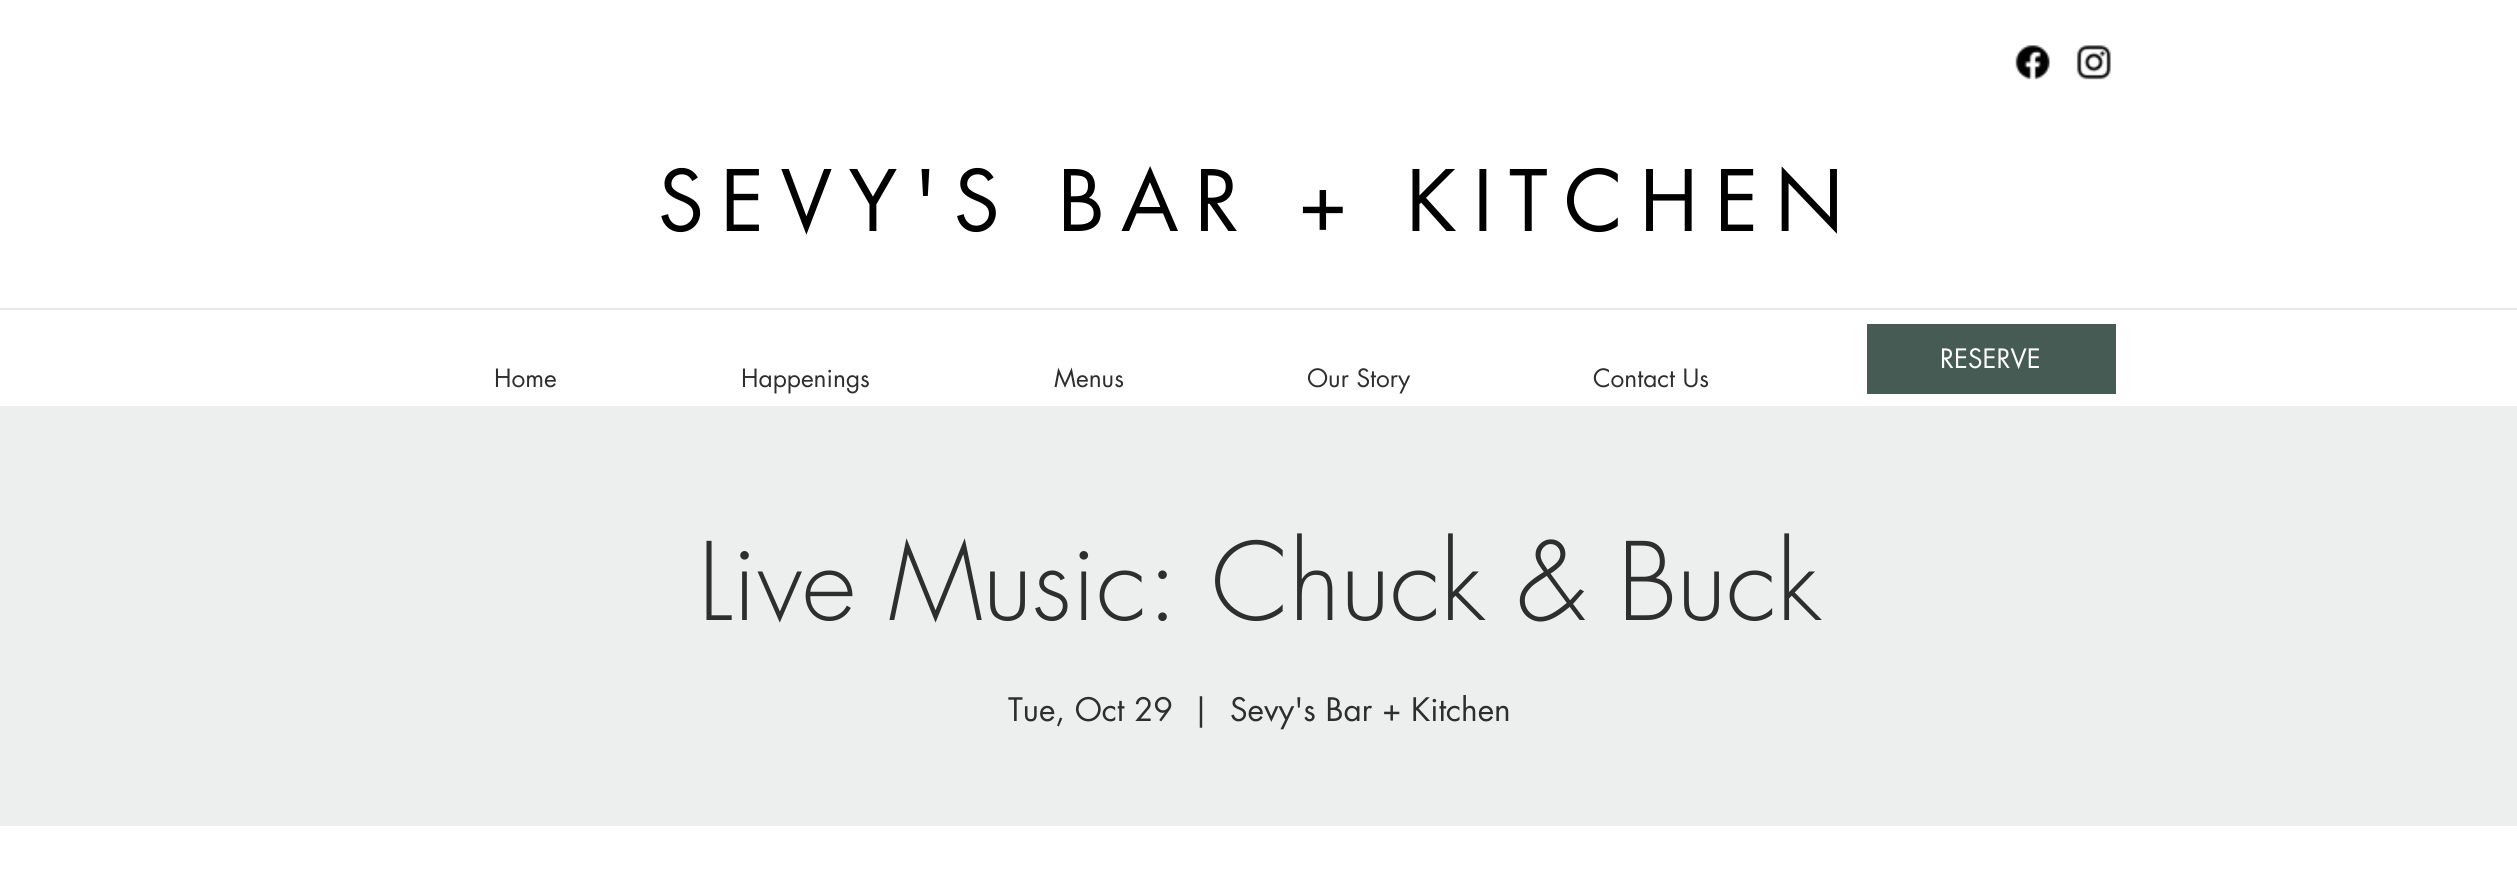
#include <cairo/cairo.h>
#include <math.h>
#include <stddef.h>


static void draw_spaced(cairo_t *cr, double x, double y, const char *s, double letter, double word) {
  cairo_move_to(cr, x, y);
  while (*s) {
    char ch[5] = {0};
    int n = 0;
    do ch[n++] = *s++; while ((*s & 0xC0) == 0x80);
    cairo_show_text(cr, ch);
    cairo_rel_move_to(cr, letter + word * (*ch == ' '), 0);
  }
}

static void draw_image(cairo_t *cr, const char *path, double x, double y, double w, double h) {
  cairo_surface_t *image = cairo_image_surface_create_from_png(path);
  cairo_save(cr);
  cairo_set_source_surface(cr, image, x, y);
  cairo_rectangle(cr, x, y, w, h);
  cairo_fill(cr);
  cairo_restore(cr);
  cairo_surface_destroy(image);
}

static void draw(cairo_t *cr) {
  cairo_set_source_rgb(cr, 1, 1, 1);
  cairo_paint(cr);
  draw_image(cr, "images/1.png", 2015, 45, 36, 35);
  draw_image(cr, "images/2.png", 2076, 45, 35, 35);
  cairo_set_source_rgb(cr, 233 / 255.0, 233 / 255.0, 233 / 255.0);
  cairo_rectangle(cr, 0, 308, 2517, 2);
  cairo_fill(cr);
  cairo_set_source_rgb(cr, 69 / 255.0, 91 / 255.0, 84 / 255.0);
  cairo_rectangle(cr, 1867, 324, 249, 70);
  cairo_fill(cr);
  cairo_set_source_rgb(cr, 237 / 255.0, 239 / 255.0, 239 / 255.0);
  cairo_rectangle(cr, 0, 406, 2517, 420);
  cairo_fill(cr);
  cairo_select_font_face(cr, "futura", CAIRO_FONT_SLANT_NORMAL, CAIRO_FONT_WEIGHT_NORMAL);
  cairo_set_font_size(cr, 82.25);
  cairo_set_source_rgb(cr, 0, 0, 0);
  draw_spaced(cr, 658, 231, "SEVY'S BAR + KITCHEN", 16.4, 0);
  cairo_set_font_size(cr, 26);
  cairo_set_source_rgb(cr, 1, 1, 1);
  cairo_move_to(cr, 1940, 368);
  cairo_show_text(cr, "RESERVE");
  cairo_set_font_size(cr, 24.5);
  cairo_set_source_rgb(cr, 47 / 255.0, 46 / 255.0, 46 / 255.0);
  cairo_move_to(cr, 494, 387);
  cairo_show_text(cr, "Home");
  cairo_move_to(cr, 741, 387);
  cairo_show_text(cr, "Happenings");
  cairo_move_to(cr, 1054, 387);
  cairo_show_text(cr, "Menus");
  cairo_move_to(cr, 1307, 387);
  cairo_show_text(cr, "Our Story");
  cairo_move_to(cr, 1593, 387);
  cairo_show_text(cr, "Contact Us");
  cairo_select_font_face(cr, "futura Light", CAIRO_FONT_SLANT_NORMAL, CAIRO_FONT_WEIGHT_NORMAL);
  cairo_set_font_size(cr, 105);
  cairo_move_to(cr, 698, 620);
  cairo_show_text(cr, "Live Music: Chuck & Buck");
  cairo_select_font_face(cr, "futura", CAIRO_FONT_SLANT_NORMAL, CAIRO_FONT_WEIGHT_NORMAL);
  cairo_set_font_size(cr, 31.5);
  cairo_move_to(cr, 1008, 721);
  cairo_show_text(cr, "Tue, Oct 29");
  cairo_move_to(cr, 1192, 721);
  cairo_show_text(cr, "|");
  cairo_move_to(cr, 1230, 721);
  cairo_show_text(cr, "Sevy's Bar + Kitchen");
}

int main(void) {
  cairo_surface_t *surface = cairo_image_surface_create(CAIRO_FORMAT_RGB24, 2517, 885);
  cairo_t *cr = cairo_create(surface);
  cairo_font_options_t *options = cairo_font_options_create();
  cairo_font_options_set_hint_metrics(options, CAIRO_HINT_METRICS_OFF);
  cairo_font_options_set_hint_style(options, CAIRO_HINT_STYLE_NONE);
  cairo_set_font_options(cr, options);
  cairo_set_miter_limit(cr, 4);
  draw(cr);
  cairo_surface_write_to_png(surface, "out.png");
  cairo_font_options_destroy(options);
  cairo_destroy(cr);
  cairo_surface_destroy(surface);
  return 0;
}
